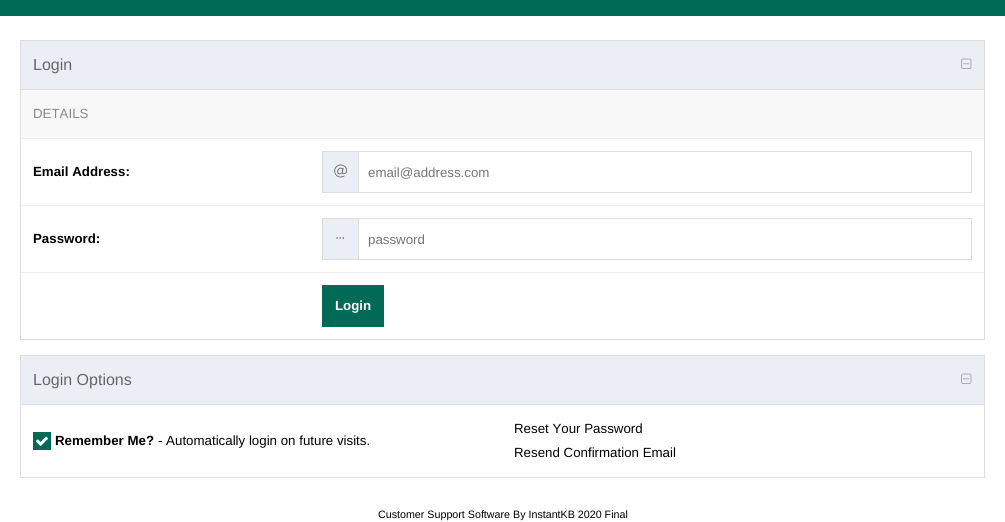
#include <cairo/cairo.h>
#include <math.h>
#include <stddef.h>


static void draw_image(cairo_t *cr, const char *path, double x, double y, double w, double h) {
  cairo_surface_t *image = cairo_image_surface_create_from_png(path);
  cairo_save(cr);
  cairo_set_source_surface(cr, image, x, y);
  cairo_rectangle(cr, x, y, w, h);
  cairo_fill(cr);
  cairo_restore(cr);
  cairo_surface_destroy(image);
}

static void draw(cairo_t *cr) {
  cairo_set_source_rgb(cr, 1, 1, 1);
  cairo_paint(cr);
  cairo_set_source_rgb(cr, 0, 106 / 255.0, 86 / 255.0);
  cairo_rectangle(cr, 0, 0, 1005, 16);
  cairo_fill(cr);
  cairo_set_source_rgb(cr, 235 / 255.0, 239 / 255.0, 245 / 255.0);
  cairo_rectangle(cr, 20.5, 40.5, 964, 49);
  cairo_fill_preserve(cr);
  cairo_set_source_rgb(cr, 221 / 255.0, 221 / 255.0, 221 / 255.0);
  cairo_set_line_width(cr, 1);
  cairo_stroke(cr);
  draw_image(cr, "images/1.png", 961, 58, 11, 11);
  cairo_rectangle(cr, 984, 90, 1, 249);
  cairo_fill(cr);
  cairo_rectangle(cr, 20, 90, 1, 249);
  cairo_fill(cr);
  cairo_set_source_rgb(cr, 248 / 255.0, 248 / 255.0, 248 / 255.0);
  cairo_rectangle(cr, 21, 90, 963, 48);
  cairo_fill(cr);
  cairo_set_source_rgb(cr, 238 / 255.0, 238 / 255.0, 238 / 255.0);
  cairo_rectangle(cr, 21, 138, 963, 1);
  cairo_fill(cr);
  cairo_rectangle(cr, 21, 205, 963, 1);
  cairo_fill(cr);
  cairo_set_source_rgb(cr, 235 / 255.0, 239 / 255.0, 245 / 255.0);
  cairo_rectangle(cr, 323, 152, 35, 40);
  cairo_fill(cr);
  cairo_set_source_rgb(cr, 221 / 255.0, 221 / 255.0, 221 / 255.0);
  cairo_rectangle(cr, 322, 151, 36, 1);
  cairo_fill(cr);
  cairo_rectangle(cr, 322, 192, 36, 1);
  cairo_fill(cr);
  cairo_rectangle(cr, 322, 151, 1, 42);
  cairo_fill(cr);
  draw_image(cr, "images/2.png", 334, 164, 14, 14);
  cairo_rectangle(cr, 358.5, 151.5, 613, 41);
  cairo_stroke(cr);
  cairo_set_source_rgb(cr, 238 / 255.0, 238 / 255.0, 238 / 255.0);
  cairo_rectangle(cr, 21, 272, 963, 1);
  cairo_fill(cr);
  cairo_set_source_rgb(cr, 235 / 255.0, 239 / 255.0, 245 / 255.0);
  cairo_rectangle(cr, 323, 219, 35, 40);
  cairo_fill(cr);
  cairo_set_source_rgb(cr, 221 / 255.0, 221 / 255.0, 221 / 255.0);
  cairo_rectangle(cr, 322, 218, 36, 1);
  cairo_fill(cr);
  cairo_rectangle(cr, 322, 259, 36, 1);
  cairo_fill(cr);
  cairo_rectangle(cr, 322, 218, 1, 42);
  cairo_fill(cr);
  draw_image(cr, "images/3.png", 336, 237, 8, 2);
  cairo_rectangle(cr, 358.5, 218.5, 613, 41);
  cairo_stroke(cr);
  cairo_set_source_rgb(cr, 0, 106 / 255.0, 86 / 255.0);
  cairo_rectangle(cr, 322, 285, 62, 42);
  cairo_fill(cr);
  cairo_set_source_rgb(cr, 221 / 255.0, 221 / 255.0, 221 / 255.0);
  cairo_rectangle(cr, 20, 339, 965, 1);
  cairo_fill(cr);
  cairo_set_source_rgb(cr, 235 / 255.0, 239 / 255.0, 245 / 255.0);
  cairo_rectangle(cr, 20.5, 355.5, 964, 49);
  cairo_fill_preserve(cr);
  cairo_set_source_rgb(cr, 221 / 255.0, 221 / 255.0, 221 / 255.0);
  cairo_stroke(cr);
  draw_image(cr, "images/1.png", 961, 373, 11, 11);
  cairo_rectangle(cr, 984, 405, 1, 72);
  cairo_fill(cr);
  cairo_rectangle(cr, 20, 405, 1, 72);
  cairo_fill(cr);
  cairo_set_source_rgb(cr, 0, 106 / 255.0, 86 / 255.0);
  cairo_rectangle(cr, 33, 432, 18, 18);
  cairo_fill(cr);
  draw_image(cr, "images/4.png", 36, 436, 12, 10);
  cairo_set_source_rgb(cr, 221 / 255.0, 221 / 255.0, 221 / 255.0);
  cairo_rectangle(cr, 20, 477, 965, 1);
  cairo_fill(cr);
  cairo_select_font_face(cr, "Liberation Sans", CAIRO_FONT_SLANT_NORMAL, CAIRO_FONT_WEIGHT_NORMAL);
  cairo_set_font_size(cr, 16);
  cairo_set_source_rgb(cr, 102 / 255.0, 102 / 255.0, 102 / 255.0);
  cairo_move_to(cr, 33, 70);
  cairo_show_text(cr, "Login");
  cairo_set_font_size(cr, 13.3);
  cairo_set_source_rgb(cr, 136 / 255.0, 136 / 255.0, 136 / 255.0);
  cairo_move_to(cr, 33, 118);
  cairo_show_text(cr, "DETAILS");
  cairo_select_font_face(cr, "Liberation Sans", CAIRO_FONT_SLANT_NORMAL, CAIRO_FONT_WEIGHT_BOLD);
  cairo_set_source_rgb(cr, 0, 0, 0);
  cairo_move_to(cr, 33, 176);
  cairo_show_text(cr, "Email Address:");
  cairo_select_font_face(cr, "Liberation Sans", CAIRO_FONT_SLANT_NORMAL, CAIRO_FONT_WEIGHT_NORMAL);
  cairo_set_source_rgb(cr, 117 / 255.0, 117 / 255.0, 117 / 255.0);
  cairo_move_to(cr, 368, 177);
  cairo_show_text(cr, "email@address.com");
  cairo_select_font_face(cr, "Liberation Sans", CAIRO_FONT_SLANT_NORMAL, CAIRO_FONT_WEIGHT_BOLD);
  cairo_set_source_rgb(cr, 0, 0, 0);
  cairo_move_to(cr, 33, 243);
  cairo_show_text(cr, "Password:");
  cairo_select_font_face(cr, "Liberation Sans", CAIRO_FONT_SLANT_NORMAL, CAIRO_FONT_WEIGHT_NORMAL);
  cairo_set_source_rgb(cr, 117 / 255.0, 117 / 255.0, 117 / 255.0);
  cairo_move_to(cr, 368, 244);
  cairo_show_text(cr, "password");
  cairo_select_font_face(cr, "Liberation Sans", CAIRO_FONT_SLANT_NORMAL, CAIRO_FONT_WEIGHT_BOLD);
  cairo_set_source_rgb(cr, 1, 1, 1);
  cairo_move_to(cr, 335, 310);
  cairo_show_text(cr, "Login");
  cairo_select_font_face(cr, "Liberation Sans", CAIRO_FONT_SLANT_NORMAL, CAIRO_FONT_WEIGHT_NORMAL);
  cairo_set_font_size(cr, 16);
  cairo_set_source_rgb(cr, 102 / 255.0, 102 / 255.0, 102 / 255.0);
  cairo_move_to(cr, 33, 385);
  cairo_show_text(cr, "Login Options");
  cairo_select_font_face(cr, "Liberation Sans", CAIRO_FONT_SLANT_NORMAL, CAIRO_FONT_WEIGHT_BOLD);
  cairo_set_font_size(cr, 13.3);
  cairo_set_source_rgb(cr, 0, 0, 0);
  cairo_move_to(cr, 55, 445);
  cairo_show_text(cr, "Remember Me?");
  cairo_select_font_face(cr, "Liberation Sans", CAIRO_FONT_SLANT_NORMAL, CAIRO_FONT_WEIGHT_NORMAL);
  cairo_move_to(cr, 158, 445);
  cairo_show_text(cr, "- Automatically login on future visits.");
  cairo_move_to(cr, 514, 433);
  cairo_show_text(cr, "Reset Your Password");
  cairo_move_to(cr, 514, 457);
  cairo_show_text(cr, "Resend Confirmation Email");
  cairo_set_font_size(cr, 10.7);
  cairo_move_to(cr, 378, 518);
  cairo_show_text(cr, "Customer Support Software By InstantKB 2020 Final");
}

int main(void) {
  cairo_surface_t *surface = cairo_image_surface_create(CAIRO_FORMAT_RGB24, 1005, 522);
  cairo_t *cr = cairo_create(surface);
  cairo_font_options_t *options = cairo_font_options_create();
  cairo_font_options_set_hint_metrics(options, CAIRO_HINT_METRICS_OFF);
  cairo_font_options_set_hint_style(options, CAIRO_HINT_STYLE_NONE);
  cairo_set_font_options(cr, options);
  cairo_set_miter_limit(cr, 4);
  draw(cr);
  cairo_surface_write_to_png(surface, "out.png");
  cairo_font_options_destroy(options);
  cairo_destroy(cr);
  cairo_surface_destroy(surface);
  return 0;
}
